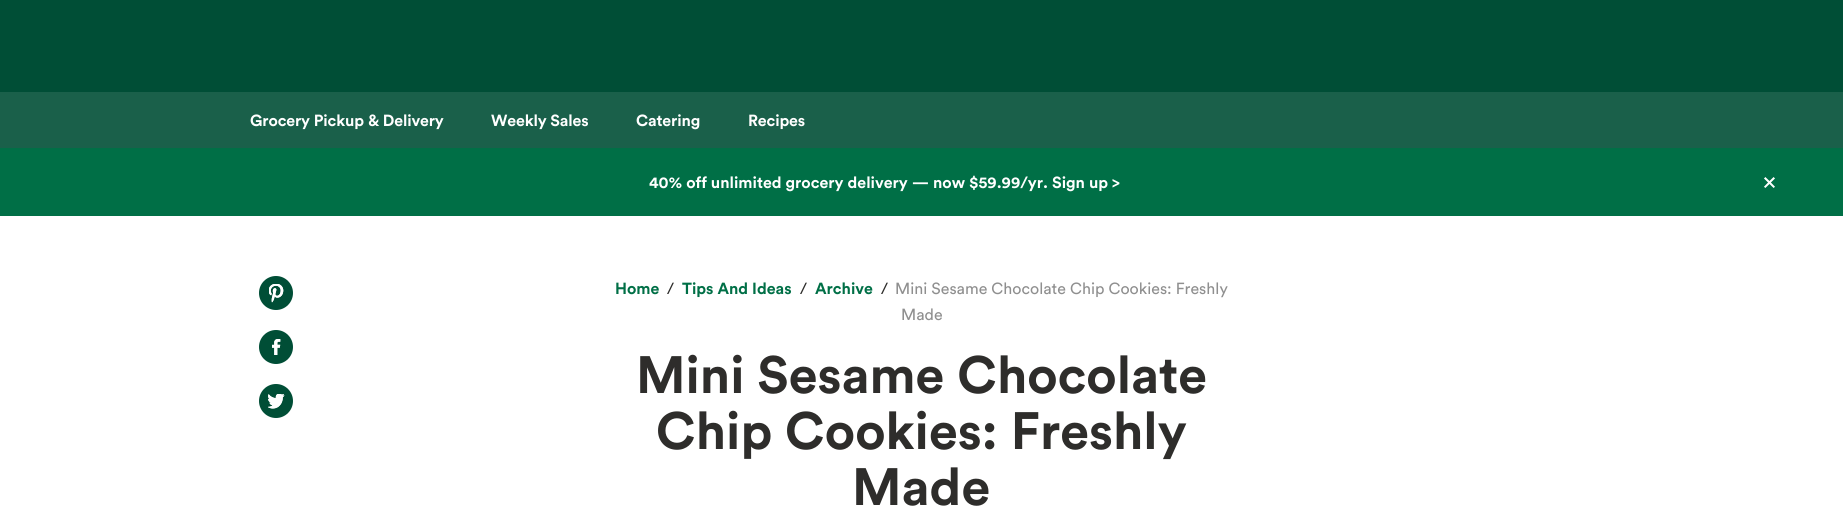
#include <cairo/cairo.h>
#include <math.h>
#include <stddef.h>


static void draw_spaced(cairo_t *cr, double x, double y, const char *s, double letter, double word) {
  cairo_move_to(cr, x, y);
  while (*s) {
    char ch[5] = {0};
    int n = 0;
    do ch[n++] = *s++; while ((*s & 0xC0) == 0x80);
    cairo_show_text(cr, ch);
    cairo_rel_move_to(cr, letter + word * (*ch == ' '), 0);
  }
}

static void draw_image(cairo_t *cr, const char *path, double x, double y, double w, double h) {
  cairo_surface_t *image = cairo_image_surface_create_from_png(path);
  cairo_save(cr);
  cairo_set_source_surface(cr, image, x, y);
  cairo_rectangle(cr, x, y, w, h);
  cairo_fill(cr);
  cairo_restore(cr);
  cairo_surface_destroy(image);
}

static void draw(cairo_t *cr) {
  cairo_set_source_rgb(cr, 1, 1, 1);
  cairo_paint(cr);
  cairo_set_source_rgb(cr, 0, 78 / 255.0, 54 / 255.0);
  cairo_rectangle(cr, 0, 0, 1843, 92);
  cairo_fill(cr);
  cairo_set_source_rgb(cr, 26 / 255.0, 96 / 255.0, 74 / 255.0);
  cairo_rectangle(cr, 0, 92, 1843, 56);
  cairo_fill(cr);
  cairo_set_source_rgb(cr, 0, 111 / 255.0, 70 / 255.0);
  cairo_rectangle(cr, 0, 148, 1843, 68);
  cairo_fill(cr);
  draw_image(cr, "images/1.png", 1764, 177, 11, 11);
  draw_image(cr, "images/2.png", 259, 276, 34, 34);
  draw_image(cr, "images/3.png", 259, 330, 34, 34);
  draw_image(cr, "images/4.png", 259, 384, 34, 34);
  cairo_select_font_face(cr, "Circular", CAIRO_FONT_SLANT_NORMAL, CAIRO_FONT_WEIGHT_BOLD);
  cairo_set_font_size(cr, 16);
  cairo_set_source_rgb(cr, 1, 1, 1);
  draw_spaced(cr, 250, 126, "Grocery Pickup & Delivery", -0.15, 0);
  draw_spaced(cr, 491, 126, "Weekly Sales", -0.15, 0);
  draw_spaced(cr, 636, 126, "Catering", -0.15, 0);
  draw_spaced(cr, 748, 126, "Recipes", -0.15, 0);
  cairo_move_to(cr, 649, 188);
  cairo_show_text(cr, "40% off unlimited grocery delivery — now $59.99/yr. Sign up >");
  cairo_set_source_rgb(cr, 0, 111 / 255.0, 70 / 255.0);
  cairo_move_to(cr, 615, 294);
  cairo_show_text(cr, "Home");
  cairo_select_font_face(cr, "Circular", CAIRO_FONT_SLANT_NORMAL, CAIRO_FONT_WEIGHT_NORMAL);
  cairo_set_source_rgb(cr, 46 / 255.0, 45 / 255.0, 43 / 255.0);
  cairo_move_to(cr, 667, 294);
  cairo_show_text(cr, "/");
  cairo_select_font_face(cr, "Circular", CAIRO_FONT_SLANT_NORMAL, CAIRO_FONT_WEIGHT_BOLD);
  cairo_set_source_rgb(cr, 0, 111 / 255.0, 70 / 255.0);
  cairo_move_to(cr, 682, 294);
  cairo_show_text(cr, "Tips And Ideas");
  cairo_select_font_face(cr, "Circular", CAIRO_FONT_SLANT_NORMAL, CAIRO_FONT_WEIGHT_NORMAL);
  cairo_set_source_rgb(cr, 46 / 255.0, 45 / 255.0, 43 / 255.0);
  cairo_move_to(cr, 800, 294);
  cairo_show_text(cr, "/");
  cairo_select_font_face(cr, "Circular", CAIRO_FONT_SLANT_NORMAL, CAIRO_FONT_WEIGHT_BOLD);
  cairo_set_source_rgb(cr, 0, 111 / 255.0, 70 / 255.0);
  cairo_move_to(cr, 815, 294);
  cairo_show_text(cr, "Archive");
  cairo_select_font_face(cr, "Circular", CAIRO_FONT_SLANT_NORMAL, CAIRO_FONT_WEIGHT_NORMAL);
  cairo_set_source_rgb(cr, 46 / 255.0, 45 / 255.0, 43 / 255.0);
  cairo_move_to(cr, 881, 294);
  cairo_show_text(cr, "/");
  cairo_set_source_rgb(cr, 143 / 255.0, 143 / 255.0, 143 / 255.0);
  cairo_move_to(cr, 895, 294);
  cairo_show_text(cr, "Mini Sesame Chocolate Chip Cookies: Freshly");
  cairo_move_to(cr, 901, 320);
  cairo_show_text(cr, "Made");
  cairo_select_font_face(cr, "Circular", CAIRO_FONT_SLANT_NORMAL, CAIRO_FONT_WEIGHT_BOLD);
  cairo_set_font_size(cr, 52);
  cairo_set_source_rgb(cr, 46 / 255.0, 45 / 255.0, 43 / 255.0);
  cairo_move_to(cr, 636, 393);
  cairo_show_text(cr, "Mini Sesame Chocolate");
  cairo_move_to(cr, 656, 449);
  cairo_show_text(cr, "Chip Cookies: Freshly");
  cairo_move_to(cr, 852, 505);
  cairo_show_text(cr, "Made");
}

int main(void) {
  cairo_surface_t *surface = cairo_image_surface_create(CAIRO_FORMAT_RGB24, 1843, 510);
  cairo_t *cr = cairo_create(surface);
  cairo_font_options_t *options = cairo_font_options_create();
  cairo_font_options_set_hint_metrics(options, CAIRO_HINT_METRICS_OFF);
  cairo_font_options_set_hint_style(options, CAIRO_HINT_STYLE_NONE);
  cairo_set_font_options(cr, options);
  cairo_set_miter_limit(cr, 4);
  draw(cr);
  cairo_surface_write_to_png(surface, "out.png");
  cairo_font_options_destroy(options);
  cairo_destroy(cr);
  cairo_surface_destroy(surface);
  return 0;
}
